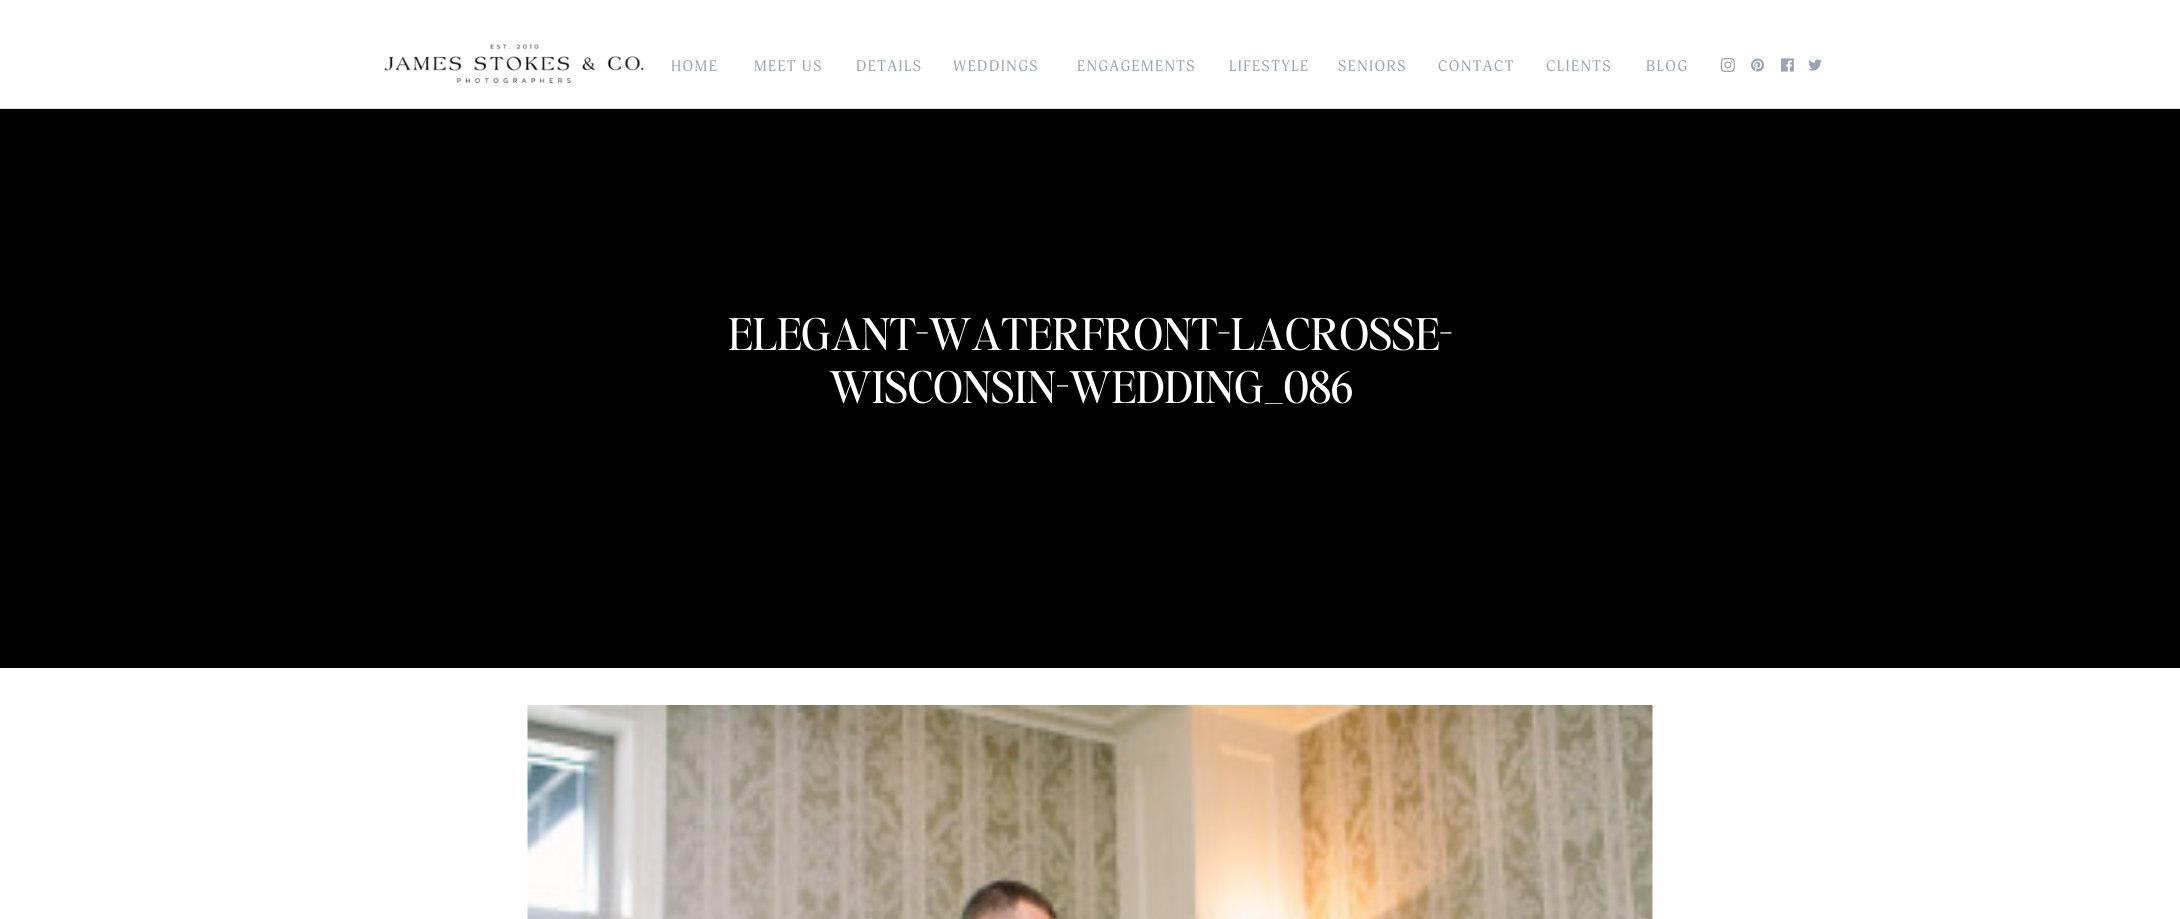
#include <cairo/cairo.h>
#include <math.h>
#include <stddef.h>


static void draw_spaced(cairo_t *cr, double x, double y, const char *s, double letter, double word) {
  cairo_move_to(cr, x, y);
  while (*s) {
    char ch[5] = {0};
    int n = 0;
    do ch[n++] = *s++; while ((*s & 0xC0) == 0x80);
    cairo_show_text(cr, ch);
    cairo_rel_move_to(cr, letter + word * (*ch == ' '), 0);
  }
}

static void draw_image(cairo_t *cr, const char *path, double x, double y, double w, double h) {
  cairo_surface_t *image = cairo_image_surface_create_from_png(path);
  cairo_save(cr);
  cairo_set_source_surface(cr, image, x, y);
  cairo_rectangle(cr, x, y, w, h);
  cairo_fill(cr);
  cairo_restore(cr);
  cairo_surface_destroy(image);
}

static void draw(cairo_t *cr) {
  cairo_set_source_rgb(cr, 1, 1, 1);
  cairo_paint(cr);
  draw_image(cr, "images/1.png", 384, 44, 260, 40);
  draw_image(cr, "images/2.png", 1720, 58, 15, 14);
  draw_image(cr, "images/3.png", 1751, 58, 13, 14);
  draw_image(cr, "images/4.png", 1781, 58, 13, 14);
  draw_image(cr, "images/5.png", 1808, 59, 14, 12);
  cairo_set_source_rgb(cr, 228 / 255.0, 223 / 255.0, 216 / 255.0);
  cairo_rectangle(cr, 0, 108, 2180, 1);
  cairo_fill(cr);
  cairo_set_source_rgb(cr, 0, 0, 0);
  cairo_rectangle(cr, 0, 109, 2180, 559);
  cairo_fill(cr);
  draw_image(cr, "images/6.png", 527, 705, 1126, 214);
  cairo_select_font_face(cr, "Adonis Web", CAIRO_FONT_SLANT_NORMAL, CAIRO_FONT_WEIGHT_NORMAL);
  cairo_set_font_size(cr, 15);
  cairo_set_source_rgb(cr, 154 / 255.0, 164 / 255.0, 176 / 255.0);
  draw_spaced(cr, 671, 71, "HOME", 1.5, 0);
  draw_spaced(cr, 754, 71, "MEET US", 1.5, 0);
  draw_spaced(cr, 856, 71, "DETAILS", 1.5, 0);
  draw_spaced(cr, 953, 71, "WEDDINGS", 1.5, 0);
  draw_spaced(cr, 1077, 71, "ENGAGEMENTS", 1.5, 0);
  draw_spaced(cr, 1229, 71, "LIFESTYLE", 1.5, 0);
  draw_spaced(cr, 1338, 71, "SENIORS", 1.5, 0);
  draw_spaced(cr, 1438, 71, "CONTACT", 1.5, 0);
  draw_spaced(cr, 1546, 71, "CLIENTS", 1.5, 0);
  draw_spaced(cr, 1646, 71, "BLOG", 1.5, 0);
  cairo_select_font_face(cr, "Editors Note", CAIRO_FONT_SLANT_NORMAL, CAIRO_FONT_WEIGHT_NORMAL);
  cairo_set_font_size(cr, 43.75);
  cairo_set_source_rgb(cr, 1, 1, 1);
  cairo_move_to(cr, 728, 350);
  cairo_show_text(cr, "ELEGANT-WATERFRONT-LACROSSE-");
  cairo_move_to(cr, 829, 403);
  cairo_show_text(cr, "WISCONSIN-WEDDING_086");
}

int main(void) {
  cairo_surface_t *surface = cairo_image_surface_create(CAIRO_FORMAT_RGB24, 2180, 919);
  cairo_t *cr = cairo_create(surface);
  cairo_font_options_t *options = cairo_font_options_create();
  cairo_font_options_set_hint_metrics(options, CAIRO_HINT_METRICS_OFF);
  cairo_font_options_set_hint_style(options, CAIRO_HINT_STYLE_NONE);
  cairo_set_font_options(cr, options);
  cairo_set_miter_limit(cr, 4);
  draw(cr);
  cairo_surface_write_to_png(surface, "out.png");
  cairo_font_options_destroy(options);
  cairo_destroy(cr);
  cairo_surface_destroy(surface);
  return 0;
}
